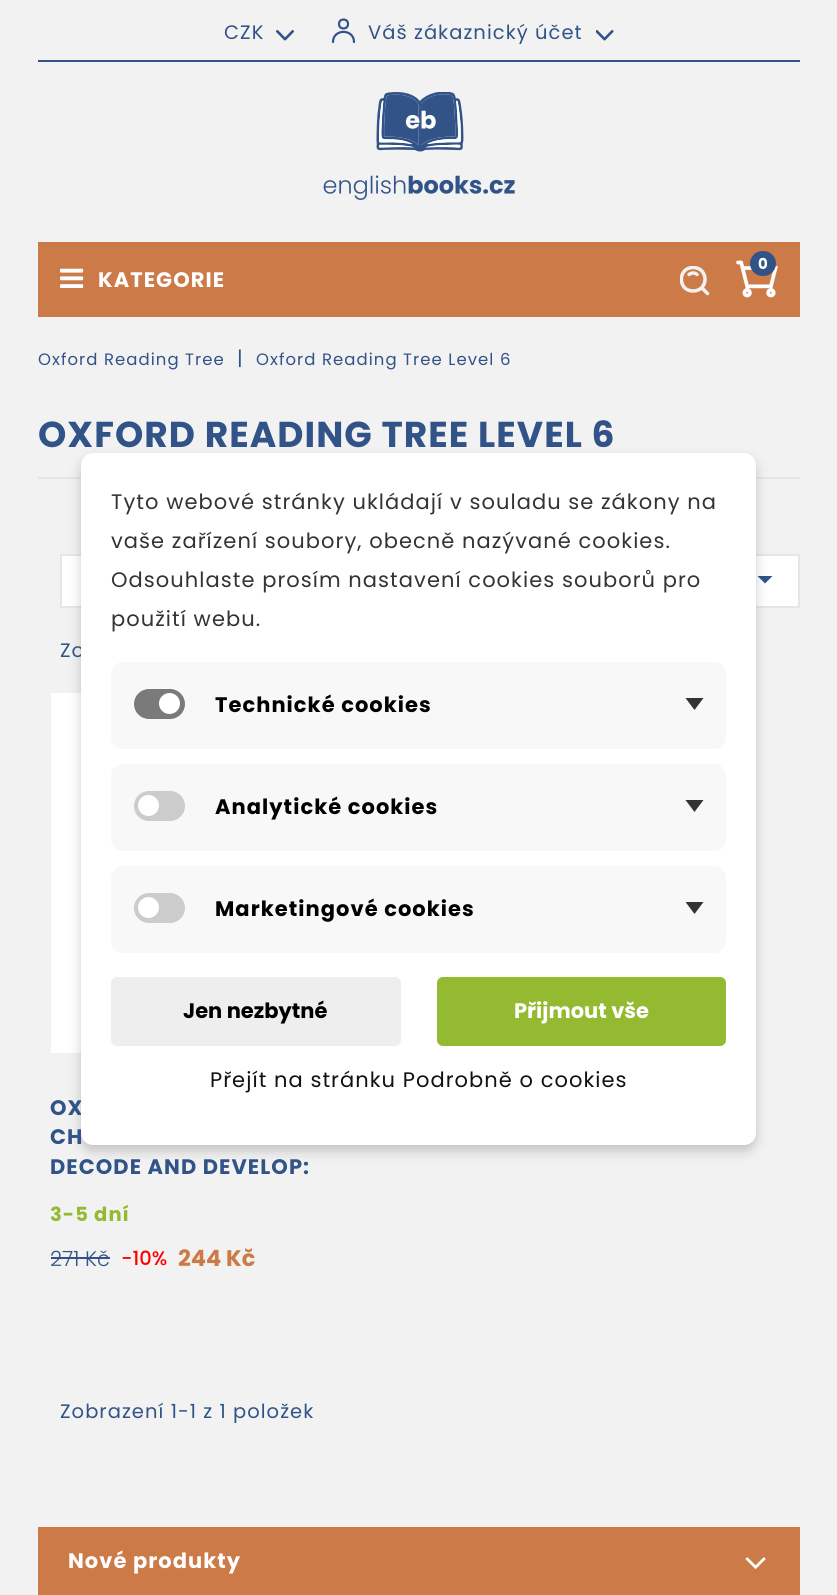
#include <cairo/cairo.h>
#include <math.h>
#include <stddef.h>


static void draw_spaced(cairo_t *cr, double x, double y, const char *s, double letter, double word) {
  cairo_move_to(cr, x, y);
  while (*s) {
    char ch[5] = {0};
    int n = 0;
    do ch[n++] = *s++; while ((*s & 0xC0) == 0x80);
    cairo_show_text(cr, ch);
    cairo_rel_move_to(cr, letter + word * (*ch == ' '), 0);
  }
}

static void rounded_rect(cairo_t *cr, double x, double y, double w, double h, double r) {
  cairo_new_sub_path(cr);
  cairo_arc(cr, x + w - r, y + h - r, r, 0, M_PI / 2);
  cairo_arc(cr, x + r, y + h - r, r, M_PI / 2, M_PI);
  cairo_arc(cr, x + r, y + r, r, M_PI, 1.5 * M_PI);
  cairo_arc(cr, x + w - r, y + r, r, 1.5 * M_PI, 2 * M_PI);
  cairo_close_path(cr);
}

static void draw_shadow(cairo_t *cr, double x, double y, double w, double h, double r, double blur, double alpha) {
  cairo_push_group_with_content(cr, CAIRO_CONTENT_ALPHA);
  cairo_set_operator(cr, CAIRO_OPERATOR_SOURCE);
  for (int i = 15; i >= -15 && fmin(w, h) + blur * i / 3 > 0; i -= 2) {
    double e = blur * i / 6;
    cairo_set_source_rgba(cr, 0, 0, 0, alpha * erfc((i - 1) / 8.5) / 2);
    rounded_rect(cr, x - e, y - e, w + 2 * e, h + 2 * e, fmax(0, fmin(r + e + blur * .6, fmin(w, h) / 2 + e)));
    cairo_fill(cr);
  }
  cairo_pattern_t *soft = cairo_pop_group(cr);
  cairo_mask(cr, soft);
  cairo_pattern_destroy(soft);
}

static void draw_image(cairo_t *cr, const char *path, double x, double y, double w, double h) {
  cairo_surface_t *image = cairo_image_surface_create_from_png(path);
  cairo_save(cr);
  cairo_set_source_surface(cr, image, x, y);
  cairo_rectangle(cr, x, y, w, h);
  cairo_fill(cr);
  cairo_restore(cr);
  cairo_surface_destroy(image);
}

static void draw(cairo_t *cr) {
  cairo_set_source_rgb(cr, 242 / 255.0, 242 / 255.0, 242 / 255.0);
  cairo_paint(cr);
  cairo_set_source_rgb(cr, 49 / 255.0, 83 / 255.0, 136 / 255.0);
  cairo_rectangle(cr, 38, 60, 762, 2);
  cairo_fill(cr);
  draw_image(cr, "images/1.png", 276, 30, 18, 11);
  cairo_new_path(cr);
  cairo_move_to(cr, 354, 42);
  cairo_curve_to(cr, 354, 28.5, 333, 28.5, 333, 42);
  cairo_move_to(cr, 348, 24);
  cairo_curve_to(cr, 348, 30, 339, 30, 339, 24);
  cairo_curve_to(cr, 339, 18, 348, 18, 348, 24);
  cairo_close_path(cr);
  cairo_set_line_width(cr, 2.2);
  cairo_set_line_cap(cr, CAIRO_LINE_CAP_ROUND);
  cairo_set_line_join(cr, CAIRO_LINE_JOIN_ROUND);
  cairo_stroke(cr);
  draw_image(cr, "images/2.png", 596, 30, 18, 11);
  draw_image(cr, "images/3.png", 323, 92, 192, 108);
  cairo_set_source_rgb(cr, 204 / 255.0, 122 / 255.0, 72 / 255.0);
  cairo_rectangle(cr, 38, 242, 762, 75);
  cairo_fill(cr);
  draw_image(cr, "images/4.png", 736, 260, 42, 38);
  cairo_set_source_rgb(cr, 49 / 255.0, 83 / 255.0, 136 / 255.0);
  rounded_rect(cr, 750, 251, 26, 25, 12.5);
  cairo_fill(cr);
  draw_image(cr, "images/5.png", 60, 268, 24, 20);
  cairo_save(cr);
  cairo_rectangle(cr, 680, 266, 30, 30);
  cairo_clip(cr);
  cairo_new_path(cr);
  cairo_move_to(cr, 697, 274.5);
  cairo_curve_to(cr, 695, 272.5, 691.5, 272.5, 689, 274.5);
  cairo_move_to(cr, 702, 288);
  cairo_line_to(cr, 707.5, 293.5);
  cairo_move_to(cr, 693, 291);
  cairo_curve_to(cr, 709, 291, 709, 267.5, 693, 267.5);
  cairo_curve_to(cr, 677.5, 267.5, 677.5, 291, 693, 291);
  cairo_close_path(cr);
  cairo_set_source_rgb(cr, 242 / 255.0, 242 / 255.0, 242 / 255.0);
  cairo_set_line_width(cr, 3.5);
  cairo_stroke(cr);
  cairo_restore(cr);
  cairo_set_source_rgb(cr, 230 / 255.0, 230 / 255.0, 230 / 255.0);
  cairo_rectangle(cr, 38, 477, 762, 2);
  cairo_fill(cr);
  cairo_set_source_rgb(cr, 1, 1, 1);
  cairo_rectangle(cr, 61, 555, 738, 52);
  cairo_fill_preserve(cr);
  cairo_set_source_rgb(cr, 230 / 255.0, 230 / 255.0, 230 / 255.0);
  cairo_set_line_width(cr, 2);
  cairo_set_line_cap(cr, CAIRO_LINE_CAP_BUTT);
  cairo_set_line_join(cr, CAIRO_LINE_JOIN_MITER);
  cairo_stroke(cr);
  cairo_set_source_rgb(cr, 49 / 255.0, 83 / 255.0, 136 / 255.0);
  cairo_new_path(cr);
  cairo_move_to(cr, 757.5, 576);
  cairo_line_to(cr, 772.5, 576);
  cairo_line_to(cr, 765, 583.5);
  cairo_close_path(cr);
  cairo_fill(cr);
  cairo_set_source_rgb(cr, 1, 1, 1);
  cairo_rectangle(cr, 51, 693, 30, 360);
  cairo_fill(cr);
  cairo_set_source_rgb(cr, 49 / 255.0, 83 / 255.0, 136 / 255.0);
  cairo_rectangle(cr, 51, 1257, 59, 2);
  cairo_fill(cr);
  cairo_set_source_rgb(cr, 204 / 255.0, 122 / 255.0, 72 / 255.0);
  cairo_rectangle(cr, 38, 1527, 762, 68);
  cairo_fill(cr);
  draw_image(cr, "images/6.png", 745, 1557, 21, 12);
  cairo_set_source_rgb(cr, 0, 0, 0);
  draw_shadow(cr, 81, 459, 675, 692, 12, 6, 0.2);
  cairo_select_font_face(cr, "Poppins", CAIRO_FONT_SLANT_NORMAL, CAIRO_FONT_WEIGHT_NORMAL);
  cairo_set_font_size(cr, 19.5);
  cairo_set_source_rgb(cr, 49 / 255.0, 83 / 255.0, 136 / 255.0);
  draw_spaced(cr, 224, 39, "CZK", 1.05, 0);
  draw_spaced(cr, 368, 39, "Váš zákaznický účet", 1.05, 0);
  cairo_select_font_face(cr, "Poppins", CAIRO_FONT_SLANT_NORMAL, CAIRO_FONT_WEIGHT_BOLD);
  cairo_set_font_size(cr, 15);
  cairo_set_source_rgb(cr, 1, 1, 1);
  draw_spaced(cr, 758, 269, "0", 1.05, 0);
  cairo_set_font_size(cr, 21);
  draw_spaced(cr, 98, 287, "KATEGORIE", 1.05, 0);
  cairo_select_font_face(cr, "Poppins", CAIRO_FONT_SLANT_NORMAL, CAIRO_FONT_WEIGHT_NORMAL);
  cairo_set_font_size(cr, 16.5);
  cairo_set_source_rgb(cr, 49 / 255.0, 83 / 255.0, 136 / 255.0);
  draw_spaced(cr, 38, 365, "Oxford Reading Tree", 1.05, 0);
  cairo_set_font_size(cr, 19.5);
  draw_spaced(cr, 237, 365, "|", 1.05, 0);
  cairo_set_font_size(cr, 16.5);
  draw_spaced(cr, 256, 365, "Oxford Reading Tree Level 6", 1.05, 0);
  cairo_select_font_face(cr, "Poppins", CAIRO_FONT_SLANT_NORMAL, CAIRO_FONT_WEIGHT_BOLD);
  cairo_set_font_size(cr, 36);
  draw_spaced(cr, 38, 447, "OXFORD READING TREE LEVEL 6", 1.05, 0);
  cairo_select_font_face(cr, "Poppins", CAIRO_FONT_SLANT_NORMAL, CAIRO_FONT_WEIGHT_NORMAL);
  cairo_set_font_size(cr, 19.5);
  draw_spaced(cr, 60, 657, "Zo", 1.05, 0);
  cairo_select_font_face(cr, "Poppins", CAIRO_FONT_SLANT_NORMAL, CAIRO_FONT_WEIGHT_BOLD);
  cairo_set_font_size(cr, 21);
  draw_spaced(cr, 50, 1115, "OX", 1.05, 0);
  draw_spaced(cr, 50, 1144, "CH", 1.05, 0);
  draw_spaced(cr, 50, 1174, "DECODE AND DEVELOP:", 1.05, 0);
  cairo_set_font_size(cr, 19.5);
  cairo_set_source_rgb(cr, 147 / 255.0, 186 / 255.0, 49 / 255.0);
  draw_spaced(cr, 50, 1221, "3-5 dní", 1.05, 0);
  cairo_select_font_face(cr, "Poppins Light", CAIRO_FONT_SLANT_NORMAL, CAIRO_FONT_WEIGHT_NORMAL);
  cairo_set_font_size(cr, 21);
  cairo_set_source_rgb(cr, 49 / 255.0, 83 / 255.0, 136 / 255.0);
  cairo_move_to(cr, 50, 1266);
  cairo_show_text(cr, "271 Kč");
  cairo_select_font_face(cr, "Poppins Medium", CAIRO_FONT_SLANT_NORMAL, CAIRO_FONT_WEIGHT_NORMAL);
  cairo_set_font_size(cr, 19.5);
  cairo_set_source_rgb(cr, 1, 0, 0);
  cairo_move_to(cr, 121, 1265);
  cairo_show_text(cr, "-10%");
  cairo_select_font_face(cr, "Poppins", CAIRO_FONT_SLANT_NORMAL, CAIRO_FONT_WEIGHT_BOLD);
  cairo_set_font_size(cr, 22.5);
  cairo_set_source_rgb(cr, 204 / 255.0, 122 / 255.0, 72 / 255.0);
  cairo_move_to(cr, 178, 1266);
  cairo_show_text(cr, "244 Kč");
  cairo_select_font_face(cr, "Poppins", CAIRO_FONT_SLANT_NORMAL, CAIRO_FONT_WEIGHT_NORMAL);
  cairo_set_font_size(cr, 19.5);
  cairo_set_source_rgb(cr, 49 / 255.0, 83 / 255.0, 136 / 255.0);
  draw_spaced(cr, 60, 1418, "Zobrazení 1-1 z 1 položek", 1.05, 0);
  cairo_select_font_face(cr, "Poppins", CAIRO_FONT_SLANT_NORMAL, CAIRO_FONT_WEIGHT_BOLD);
  cairo_set_font_size(cr, 21);
  cairo_set_source_rgb(cr, 1, 1, 1);
  draw_spaced(cr, 68, 1568, "Nové produkty", 1.05, 0);
  rounded_rect(cr, 81, 453, 675, 692, 12);
  cairo_fill(cr);
  cairo_select_font_face(cr, "Poppins", CAIRO_FONT_SLANT_NORMAL, CAIRO_FONT_WEIGHT_NORMAL);
  cairo_set_source_rgb(cr, 51 / 255.0, 51 / 255.0, 51 / 255.0);
  draw_spaced(cr, 111, 509, "Tyto webové stránky ukládají v souladu se zákony na", 1.05, 0);
  draw_spaced(cr, 111, 548, "vaše zařízení soubory, obecně nazývané cookies.", 1.05, 0);
  draw_spaced(cr, 111, 587, "Odsouhlaste prosím nastavení cookies souborů pro", 1.05, 0);
  draw_spaced(cr, 111, 626, "použití webu.", 1.05, 0);
  cairo_set_source_rgb(cr, 248 / 255.0, 248 / 255.0, 248 / 255.0);
  rounded_rect(cr, 111, 662, 615, 87, 12);
  cairo_fill(cr);
  cairo_set_source_rgb(cr, 122 / 255.0, 122 / 255.0, 122 / 255.0);
  rounded_rect(cr, 134, 689, 51, 30, 15);
  cairo_fill(cr);
  cairo_set_source_rgb(cr, 1, 1, 1);
  cairo_arc(cr, 169.5, 703.5, 10.5, 0, 2 * M_PI);
  cairo_fill(cr);
  cairo_select_font_face(cr, "Poppins", CAIRO_FONT_SLANT_NORMAL, CAIRO_FONT_WEIGHT_BOLD);
  cairo_set_source_rgb(cr, 0, 0, 0);
  draw_spaced(cr, 215, 712, "Technické cookies", 1.05, 0);
  cairo_set_source_rgb(cr, 51 / 255.0, 51 / 255.0, 51 / 255.0);
  cairo_new_path(cr);
  cairo_move_to(cr, 685.5, 698);
  cairo_line_to(cr, 703.5, 698);
  cairo_line_to(cr, 694.5, 710);
  cairo_close_path(cr);
  cairo_fill(cr);
  cairo_set_source_rgb(cr, 248 / 255.0, 248 / 255.0, 248 / 255.0);
  rounded_rect(cr, 111, 764, 615, 87, 12);
  cairo_fill(cr);
  cairo_set_source_rgb(cr, 204 / 255.0, 204 / 255.0, 204 / 255.0);
  rounded_rect(cr, 134, 791, 51, 30, 15);
  cairo_fill(cr);
  cairo_set_source_rgb(cr, 1, 1, 1);
  cairo_arc(cr, 148.5, 805.5, 10.5, 0, 2 * M_PI);
  cairo_fill(cr);
  cairo_set_source_rgb(cr, 0, 0, 0);
  draw_spaced(cr, 215, 814, "Analytické cookies", 1.05, 0);
  cairo_set_source_rgb(cr, 51 / 255.0, 51 / 255.0, 51 / 255.0);
  cairo_new_path(cr);
  cairo_move_to(cr, 685.5, 800);
  cairo_line_to(cr, 703.5, 800);
  cairo_line_to(cr, 694.5, 812);
  cairo_close_path(cr);
  cairo_fill(cr);
  cairo_set_source_rgb(cr, 248 / 255.0, 248 / 255.0, 248 / 255.0);
  rounded_rect(cr, 111, 866, 615, 87, 12);
  cairo_fill(cr);
  cairo_set_source_rgb(cr, 204 / 255.0, 204 / 255.0, 204 / 255.0);
  rounded_rect(cr, 134, 893, 51, 30, 15);
  cairo_fill(cr);
  cairo_set_source_rgb(cr, 1, 1, 1);
  cairo_arc(cr, 148.5, 907.5, 10.5, 0, 2 * M_PI);
  cairo_fill(cr);
  cairo_set_source_rgb(cr, 0, 0, 0);
  draw_spaced(cr, 215, 916, "Marketingové cookies", 1.05, 0);
  cairo_set_source_rgb(cr, 51 / 255.0, 51 / 255.0, 51 / 255.0);
  cairo_new_path(cr);
  cairo_move_to(cr, 685.5, 902);
  cairo_line_to(cr, 703.5, 902);
  cairo_line_to(cr, 694.5, 914);
  cairo_close_path(cr);
  cairo_fill(cr);
  cairo_set_source_rgb(cr, 238 / 255.0, 238 / 255.0, 238 / 255.0);
  rounded_rect(cr, 111, 977, 290, 69, 6);
  cairo_fill(cr);
  cairo_set_source_rgb(cr, 0, 0, 0);
  cairo_move_to(cr, 183, 1018);
  cairo_show_text(cr, "Jen nezbytné");
  cairo_set_source_rgb(cr, 147 / 255.0, 186 / 255.0, 49 / 255.0);
  rounded_rect(cr, 437, 977, 289, 69, 6);
  cairo_fill(cr);
  cairo_set_source_rgb(cr, 1, 1, 1);
  cairo_move_to(cr, 514, 1018);
  cairo_show_text(cr, "Přijmout vše");
  cairo_select_font_face(cr, "Poppins", CAIRO_FONT_SLANT_NORMAL, CAIRO_FONT_WEIGHT_NORMAL);
  cairo_set_source_rgb(cr, 17 / 255.0, 17 / 255.0, 17 / 255.0);
  draw_spaced(cr, 210, 1087, "Přejít na stránku Podrobně o cookies", 1.05, 0);
}

int main(void) {
  cairo_surface_t *surface = cairo_image_surface_create(CAIRO_FORMAT_RGB24, 837, 1595);
  cairo_t *cr = cairo_create(surface);
  cairo_font_options_t *options = cairo_font_options_create();
  cairo_font_options_set_hint_metrics(options, CAIRO_HINT_METRICS_OFF);
  cairo_font_options_set_hint_style(options, CAIRO_HINT_STYLE_NONE);
  cairo_set_font_options(cr, options);
  cairo_set_miter_limit(cr, 4);
  draw(cr);
  cairo_surface_write_to_png(surface, "out.png");
  cairo_font_options_destroy(options);
  cairo_destroy(cr);
  cairo_surface_destroy(surface);
  return 0;
}
